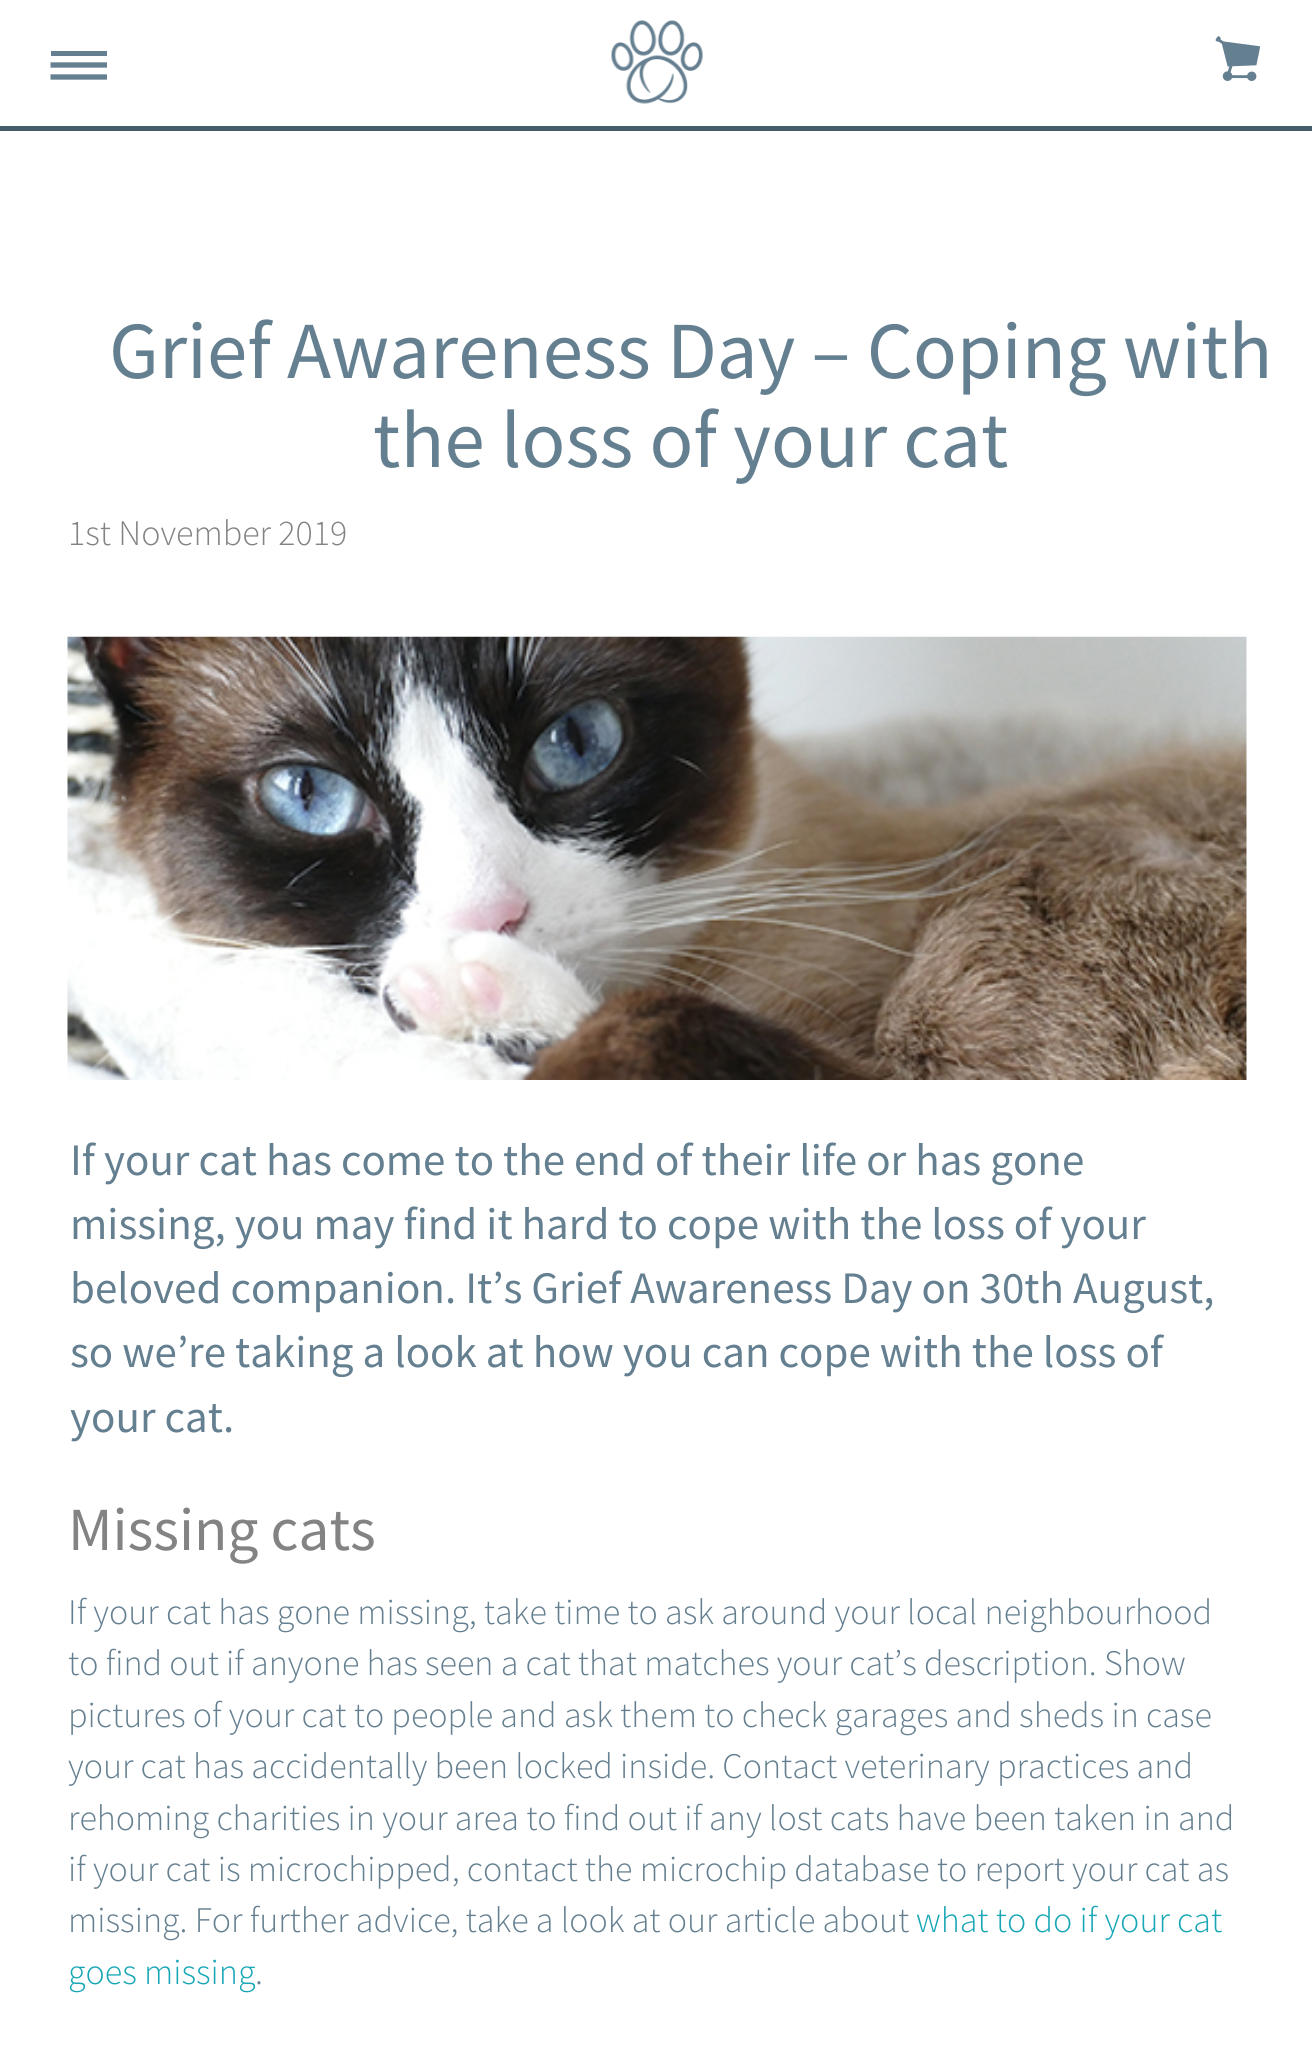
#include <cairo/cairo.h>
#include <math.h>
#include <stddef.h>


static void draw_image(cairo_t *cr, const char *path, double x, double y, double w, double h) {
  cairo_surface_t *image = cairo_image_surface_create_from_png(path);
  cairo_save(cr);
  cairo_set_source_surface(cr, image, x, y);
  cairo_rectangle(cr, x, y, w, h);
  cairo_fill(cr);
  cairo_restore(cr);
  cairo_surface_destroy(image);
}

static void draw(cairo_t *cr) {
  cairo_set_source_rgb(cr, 1, 1, 1);
  cairo_paint(cr);
  cairo_set_source_rgb(cr, 69 / 255.0, 92 / 255.0, 107 / 255.0);
  cairo_rectangle(cr, 0, 126, 1312, 5);
  cairo_fill(cr);
  cairo_set_source_rgb(cr, 100 / 255.0, 127 / 255.0, 144 / 255.0);
  cairo_rectangle(cr, 51, 51, 56, 5);
  cairo_fill(cr);
  cairo_new_path(cr);
  cairo_move_to(cr, 50.5, 65);
  cairo_line_to(cr, 107, 65);
  cairo_move_to(cr, 50.5, 77);
  cairo_line_to(cr, 107, 77);
  cairo_set_line_width(cr, 5.3);
  cairo_set_line_join(cr, CAIRO_LINE_JOIN_BEVEL);
  cairo_stroke(cr);
  draw_image(cr, "images/1.png", 611, 20, 92, 84);
  draw_image(cr, "images/2.png", 1215, 36, 45, 45);
  draw_image(cr, "images/3.png", 67, 636, 1180, 444);
  cairo_select_font_face(cr, "Source Sans Pro", CAIRO_FONT_SLANT_NORMAL, CAIRO_FONT_WEIGHT_NORMAL);
  cairo_set_font_size(cr, 81);
  cairo_move_to(cr, 109, 378);
  cairo_show_text(cr, "Grief Awareness Day – Coping with");
  cairo_move_to(cr, 373, 467);
  cairo_show_text(cr, "the loss of your cat");
  cairo_select_font_face(cr, "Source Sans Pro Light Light", CAIRO_FONT_SLANT_NORMAL, CAIRO_FONT_WEIGHT_NORMAL);
  cairo_set_font_size(cr, 36);
  cairo_set_source_rgb(cr, 131 / 255.0, 131 / 255.0, 131 / 255.0);
  cairo_move_to(cr, 68, 545);
  cairo_show_text(cr, "1st November 2019");
  cairo_select_font_face(cr, "Source Sans Pro", CAIRO_FONT_SLANT_NORMAL, CAIRO_FONT_WEIGHT_NORMAL);
  cairo_set_font_size(cr, 45);
  cairo_set_source_rgb(cr, 100 / 255.0, 127 / 255.0, 144 / 255.0);
  cairo_move_to(cr, 70, 1175);
  cairo_show_text(cr, "If your cat has come to the end of their life or has gone");
  cairo_move_to(cr, 70, 1239);
  cairo_show_text(cr, "missing, you may find it hard to cope with the loss of your");
  cairo_move_to(cr, 70, 1303);
  cairo_show_text(cr, "beloved companion. It’s Grief Awareness Day on 30th August,");
  cairo_move_to(cr, 70, 1367);
  cairo_show_text(cr, "so we’re taking a look at how you can cope with the loss of");
  cairo_move_to(cr, 70, 1432);
  cairo_show_text(cr, "your cat.");
  cairo_set_font_size(cr, 61.25);
  cairo_set_source_rgb(cr, 131 / 255.0, 131 / 255.0, 131 / 255.0);
  cairo_move_to(cr, 68, 1550);
  cairo_show_text(cr, "Missing cats");
  cairo_select_font_face(cr, "Source Sans Pro Light Light", CAIRO_FONT_SLANT_NORMAL, CAIRO_FONT_WEIGHT_NORMAL);
  cairo_set_font_size(cr, 36);
  cairo_set_source_rgb(cr, 100 / 255.0, 127 / 255.0, 144 / 255.0);
  cairo_move_to(cr, 68, 1624);
  cairo_show_text(cr, "If your cat has gone missing, take time to ask around your local neighbourhood");
  cairo_move_to(cr, 68, 1675);
  cairo_show_text(cr, "to find out if anyone has seen a cat that matches your cat’s description. Show");
  cairo_move_to(cr, 68, 1727);
  cairo_show_text(cr, "pictures of your cat to people and ask them to check garages and sheds in case");
  cairo_move_to(cr, 68, 1778);
  cairo_show_text(cr, "your cat has accidentally been locked inside. Contact veterinary practices and");
  cairo_move_to(cr, 68, 1830);
  cairo_show_text(cr, "rehoming charities in your area to find out if any lost cats have been taken in and");
  cairo_move_to(cr, 68, 1881);
  cairo_show_text(cr, "if your cat is microchipped, contact the microchip database to report your cat as");
  cairo_move_to(cr, 68, 1932);
  cairo_show_text(cr, "missing. For further advice, take a look at our article about");
  cairo_set_source_rgb(cr, 22 / 255.0, 166 / 255.0, 182 / 255.0);
  cairo_move_to(cr, 916, 1932);
  cairo_show_text(cr, "what to do if your cat");
  cairo_move_to(cr, 68, 1984);
  cairo_show_text(cr, "goes missing");
  cairo_set_source_rgb(cr, 100 / 255.0, 127 / 255.0, 144 / 255.0);
  cairo_move_to(cr, 255, 1984);
  cairo_show_text(cr, ".");
}

int main(void) {
  cairo_surface_t *surface = cairo_image_surface_create(CAIRO_FORMAT_RGB24, 1312, 2067);
  cairo_t *cr = cairo_create(surface);
  cairo_font_options_t *options = cairo_font_options_create();
  cairo_font_options_set_hint_metrics(options, CAIRO_HINT_METRICS_OFF);
  cairo_font_options_set_hint_style(options, CAIRO_HINT_STYLE_NONE);
  cairo_set_font_options(cr, options);
  cairo_set_miter_limit(cr, 4);
  draw(cr);
  cairo_surface_write_to_png(surface, "out.png");
  cairo_font_options_destroy(options);
  cairo_destroy(cr);
  cairo_surface_destroy(surface);
  return 0;
}
